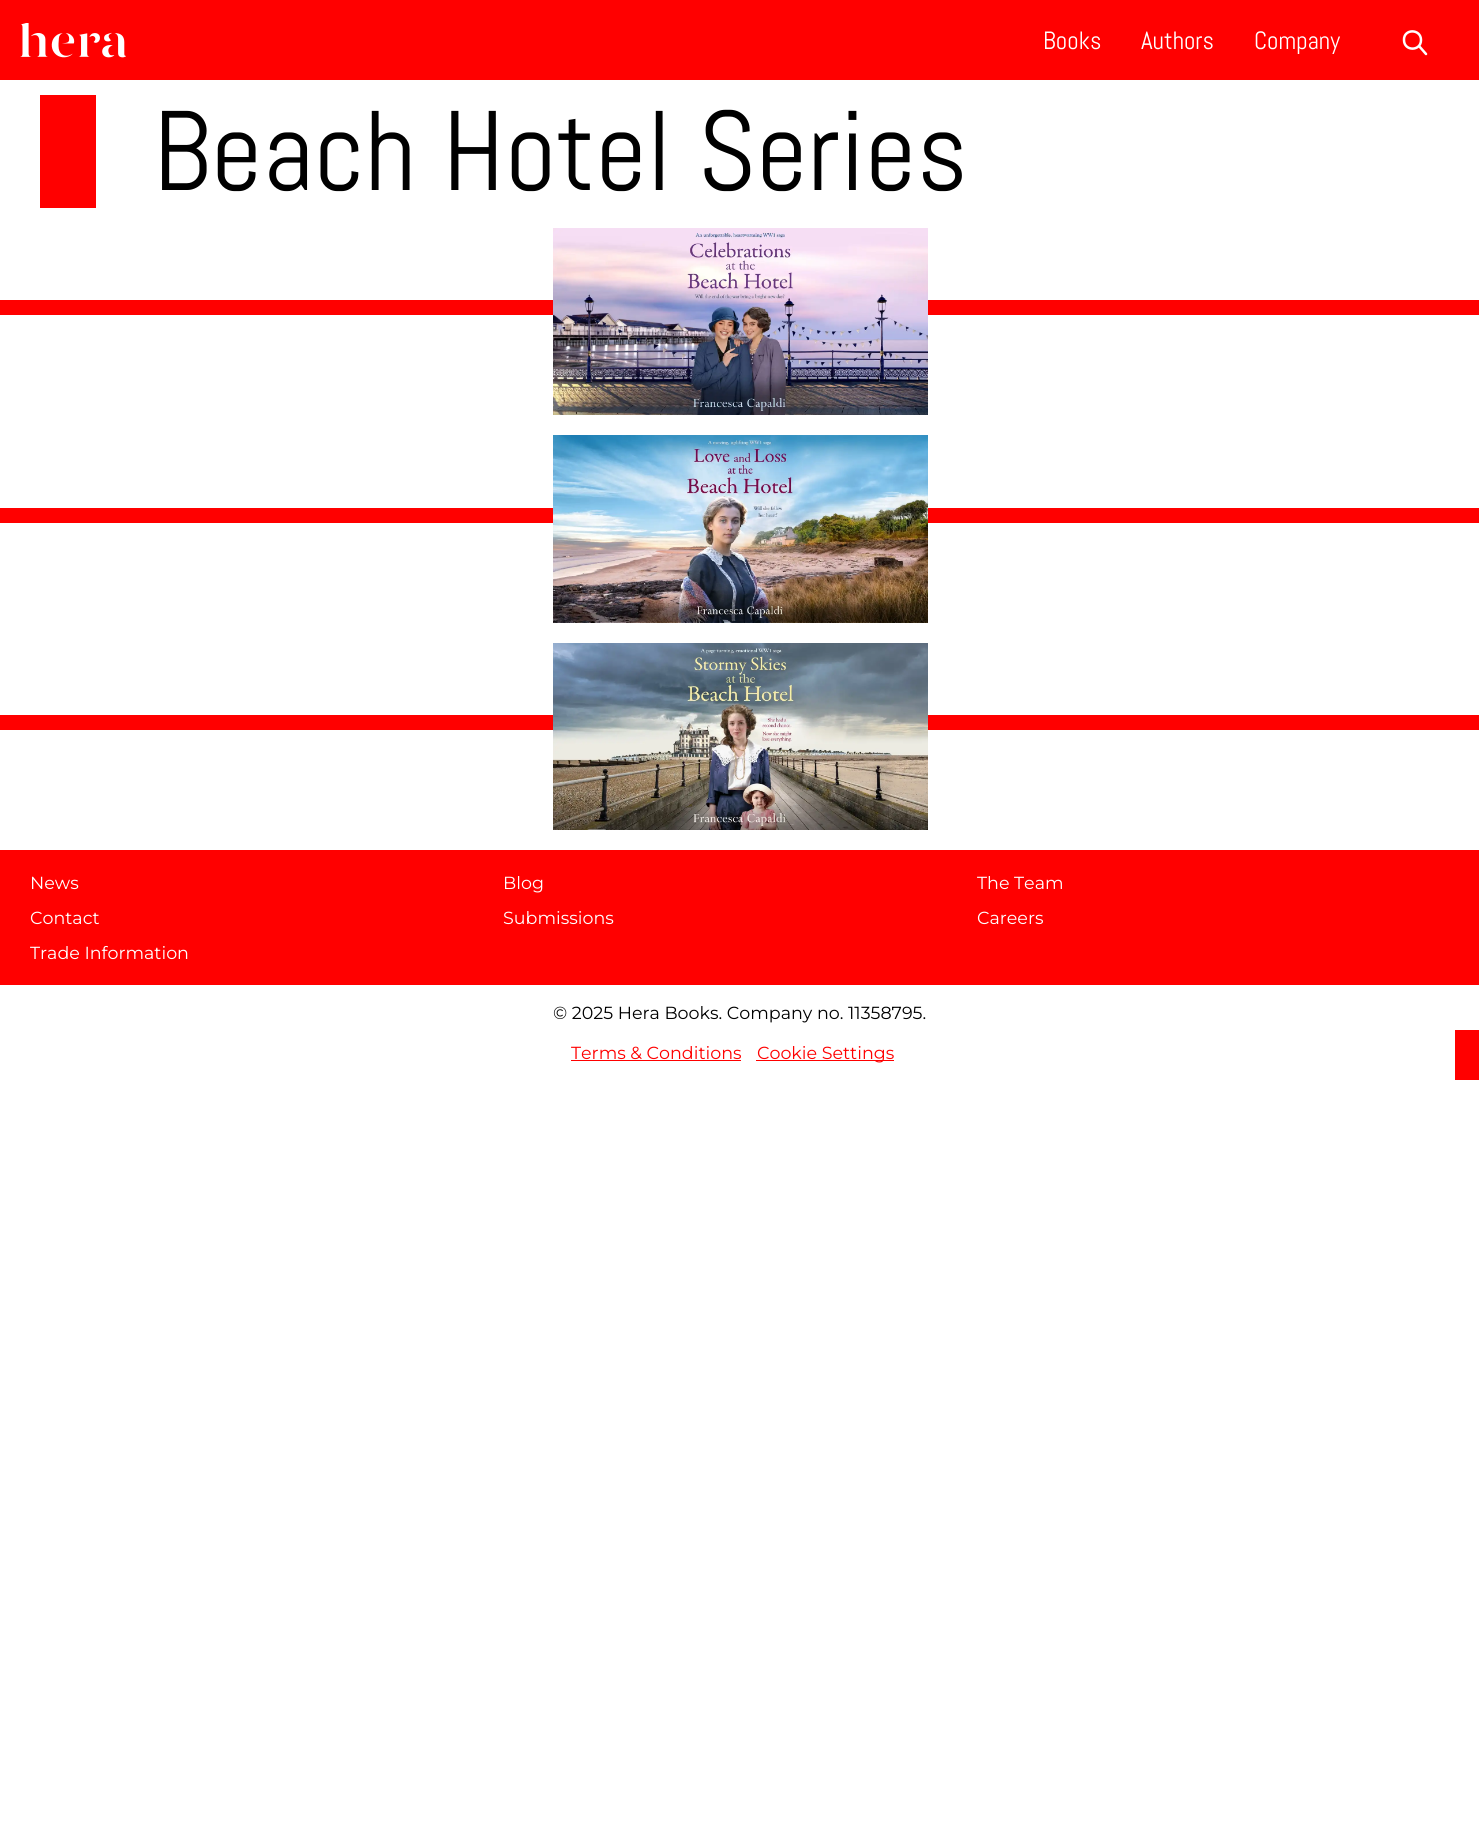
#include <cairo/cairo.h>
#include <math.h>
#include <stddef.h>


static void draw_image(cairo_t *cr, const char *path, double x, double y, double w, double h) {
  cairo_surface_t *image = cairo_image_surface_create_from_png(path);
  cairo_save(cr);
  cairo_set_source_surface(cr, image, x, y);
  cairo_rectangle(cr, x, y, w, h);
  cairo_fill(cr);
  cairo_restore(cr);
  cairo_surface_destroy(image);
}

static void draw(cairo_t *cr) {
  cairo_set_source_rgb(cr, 1, 1, 1);
  cairo_paint(cr);
  cairo_set_source_rgb(cr, 1, 0, 0);
  cairo_rectangle(cr, 0, 0, 1479, 80);
  cairo_fill(cr);
  draw_image(cr, "images/1.png", 20, 23, 106, 35);
  cairo_new_path(cr);
  cairo_move_to(cr, 1426, 54);
  cairo_line_to(cr, 1419, 46);
  cairo_move_to(cr, 1421, 40);
  cairo_curve_to(cr, 1421, 51.5, 1404, 51.5, 1404, 40);
  cairo_curve_to(cr, 1403.5, 28.5, 1421, 28.5, 1421, 40);
  cairo_close_path(cr);
  cairo_set_source_rgb(cr, 1, 1, 1);
  cairo_set_line_width(cr, 2.5);
  cairo_set_line_cap(cr, CAIRO_LINE_CAP_ROUND);
  cairo_set_line_join(cr, CAIRO_LINE_JOIN_ROUND);
  cairo_stroke(cr);
  cairo_set_source_rgb(cr, 1, 0, 0);
  cairo_rectangle(cr, 40, 95, 56, 113);
  cairo_fill(cr);
  cairo_rectangle(cr, 0, 300, 1479, 15);
  cairo_fill(cr);
  draw_image(cr, "images/2.png", 553, 228, 375, 187);
  cairo_rectangle(cr, 0, 508, 1479, 15);
  cairo_fill(cr);
  draw_image(cr, "images/3.png", 553, 435, 375, 188);
  cairo_rectangle(cr, 0, 715, 1479, 15);
  cairo_fill(cr);
  draw_image(cr, "images/4.png", 553, 643, 375, 187);
  cairo_rectangle(cr, 0, 850, 1479, 135);
  cairo_fill(cr);
  cairo_rectangle(cr, 571, 1060, 170, 1);
  cairo_fill(cr);
  cairo_rectangle(cr, 756, 1060, 138, 1);
  cairo_fill(cr);
  cairo_rectangle(cr, 1455, 1030, 24, 50);
  cairo_fill(cr);
  cairo_select_font_face(cr, "Abel", CAIRO_FONT_SLANT_NORMAL, CAIRO_FONT_WEIGHT_NORMAL);
  cairo_set_font_size(cr, 25);
  cairo_set_source_rgb(cr, 1, 1, 1);
  cairo_move_to(cr, 1043, 49);
  cairo_show_text(cr, "Books");
  cairo_move_to(cr, 1141, 49);
  cairo_show_text(cr, "Authors");
  cairo_move_to(cr, 1254, 49);
  cairo_show_text(cr, "Company");
  cairo_set_font_size(cr, 113);
  cairo_set_source_rgb(cr, 0, 0, 0);
  cairo_move_to(cr, 153, 190);
  cairo_show_text(cr, "Beach Hotel Series");
  cairo_select_font_face(cr, "Montserrat Thin", CAIRO_FONT_SLANT_NORMAL, CAIRO_FONT_WEIGHT_NORMAL);
  cairo_set_font_size(cr, 17.5);
  cairo_set_source_rgb(cr, 1, 1, 1);
  cairo_move_to(cr, 30, 889);
  cairo_show_text(cr, "News");
  cairo_move_to(cr, 503, 889);
  cairo_show_text(cr, "Blog");
  cairo_move_to(cr, 977, 889);
  cairo_show_text(cr, "The Team");
  cairo_move_to(cr, 30, 924);
  cairo_show_text(cr, "Contact");
  cairo_move_to(cr, 503, 924);
  cairo_show_text(cr, "Submissions");
  cairo_move_to(cr, 977, 924);
  cairo_show_text(cr, "Careers");
  cairo_move_to(cr, 30, 959);
  cairo_show_text(cr, "Trade Information");
  cairo_set_source_rgb(cr, 0, 0, 0);
  cairo_move_to(cr, 553, 1019);
  cairo_show_text(cr, "© 2025 Hera Books. Company no. 11358795.");
  cairo_set_source_rgb(cr, 1, 0, 0);
  cairo_move_to(cr, 571, 1059);
  cairo_show_text(cr, "Terms & Conditions");
  cairo_move_to(cr, 757, 1059);
  cairo_show_text(cr, "Cookie Settings");
}

int main(void) {
  cairo_surface_t *surface = cairo_image_surface_create(CAIRO_FORMAT_RGB24, 1479, 1827);
  cairo_t *cr = cairo_create(surface);
  cairo_font_options_t *options = cairo_font_options_create();
  cairo_font_options_set_hint_metrics(options, CAIRO_HINT_METRICS_OFF);
  cairo_font_options_set_hint_style(options, CAIRO_HINT_STYLE_NONE);
  cairo_set_font_options(cr, options);
  cairo_set_miter_limit(cr, 4);
  draw(cr);
  cairo_surface_write_to_png(surface, "out.png");
  cairo_font_options_destroy(options);
  cairo_destroy(cr);
  cairo_surface_destroy(surface);
  return 0;
}
